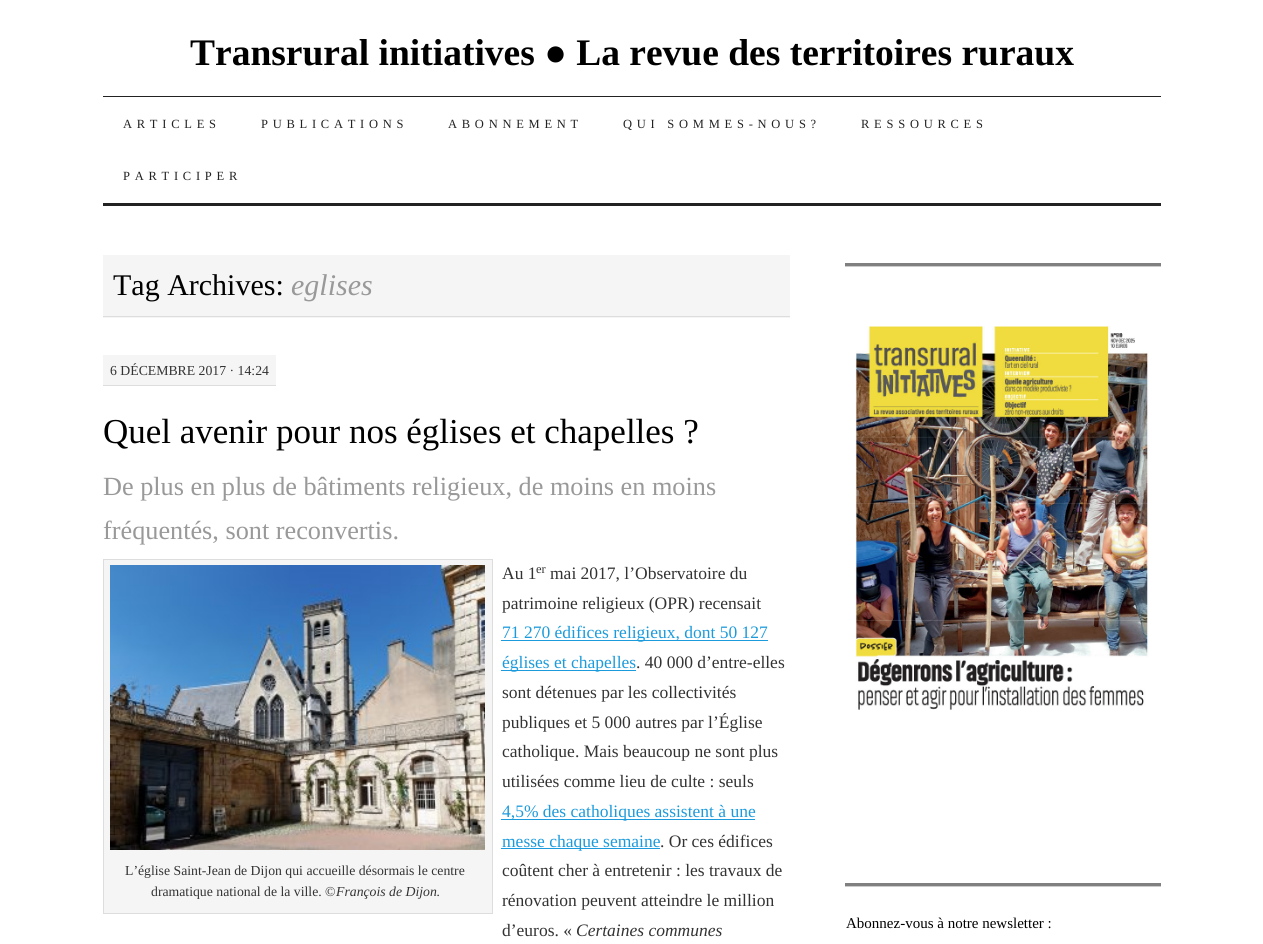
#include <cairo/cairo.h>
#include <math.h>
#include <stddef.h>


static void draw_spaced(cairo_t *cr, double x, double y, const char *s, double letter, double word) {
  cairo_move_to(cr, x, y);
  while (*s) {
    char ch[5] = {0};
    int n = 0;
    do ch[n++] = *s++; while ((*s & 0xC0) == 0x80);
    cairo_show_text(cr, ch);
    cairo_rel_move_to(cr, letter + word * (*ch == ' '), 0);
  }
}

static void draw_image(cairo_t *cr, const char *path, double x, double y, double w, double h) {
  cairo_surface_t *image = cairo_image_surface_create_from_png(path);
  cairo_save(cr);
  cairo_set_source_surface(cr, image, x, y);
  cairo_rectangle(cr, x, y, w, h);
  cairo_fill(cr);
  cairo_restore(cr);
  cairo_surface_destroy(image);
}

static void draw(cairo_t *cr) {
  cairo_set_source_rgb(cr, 1, 1, 1);
  cairo_paint(cr);
  cairo_set_source_rgb(cr, 34 / 255.0, 34 / 255.0, 34 / 255.0);
  cairo_rectangle(cr, 103, 96, 1058, 1);
  cairo_fill(cr);
  cairo_rectangle(cr, 103, 203, 1058, 3);
  cairo_fill(cr);
  cairo_set_source_rgb(cr, 245 / 255.0, 245 / 255.0, 245 / 255.0);
  cairo_rectangle(cr, 103, 255, 687, 63);
  cairo_fill(cr);
  cairo_set_source_rgb(cr, 221 / 255.0, 221 / 255.0, 221 / 255.0);
  cairo_rectangle(cr, 103, 316, 687, 1);
  cairo_fill(cr);
  cairo_set_source_rgb(cr, 245 / 255.0, 245 / 255.0, 245 / 255.0);
  cairo_rectangle(cr, 103, 355, 173, 30);
  cairo_fill(cr);
  cairo_set_source_rgb(cr, 221 / 255.0, 221 / 255.0, 221 / 255.0);
  cairo_rectangle(cr, 103, 385, 173, 1);
  cairo_fill(cr);
  cairo_set_source_rgb(cr, 245 / 255.0, 245 / 255.0, 245 / 255.0);
  cairo_rectangle(cr, 103.5, 559.5, 389, 354);
  cairo_fill_preserve(cr);
  cairo_set_source_rgb(cr, 221 / 255.0, 221 / 255.0, 221 / 255.0);
  cairo_set_line_width(cr, 1);
  cairo_stroke(cr);
  draw_image(cr, "images/1.png", 110, 565, 375, 285);
  cairo_set_source_rgb(cr, 28 / 255.0, 155 / 255.0, 220 / 255.0);
  cairo_rectangle(cr, 501, 640, 267, 1);
  cairo_fill(cr);
  cairo_rectangle(cr, 501, 670, 135, 1);
  cairo_fill(cr);
  cairo_rectangle(cr, 501, 819, 254, 1);
  cairo_fill(cr);
  cairo_rectangle(cr, 501, 848, 159, 1);
  cairo_fill(cr);
  cairo_set_source_rgb(cr, 204 / 255.0, 204 / 255.0, 204 / 255.0);
  cairo_rectangle(cr, 845, 266, 316, 1);
  cairo_fill(cr);
  cairo_set_source_rgb(cr, 128 / 255.0, 128 / 255.0, 128 / 255.0);
  cairo_rectangle(cr, 845, 263, 316, 3);
  cairo_fill(cr);
  draw_image(cr, "images/2.png", 855, 326, 294, 384);
  cairo_set_source_rgb(cr, 204 / 255.0, 204 / 255.0, 204 / 255.0);
  cairo_rectangle(cr, 845, 886, 316, 1);
  cairo_fill(cr);
  cairo_set_source_rgb(cr, 128 / 255.0, 128 / 255.0, 128 / 255.0);
  cairo_rectangle(cr, 845, 883, 316, 3);
  cairo_fill(cr);
  cairo_select_font_face(cr, "Liberation Serif", CAIRO_FONT_SLANT_NORMAL, CAIRO_FONT_WEIGHT_BOLD);
  cairo_set_font_size(cr, 37.5);
  cairo_set_source_rgb(cr, 0, 0, 0);
  cairo_move_to(cr, 190, 65);
  cairo_show_text(cr, "Transrural initiatives ● La revue des territoires ruraux");
  cairo_select_font_face(cr, "Liberation Serif", CAIRO_FONT_SLANT_NORMAL, CAIRO_FONT_WEIGHT_NORMAL);
  cairo_set_font_size(cr, 12.5);
  cairo_set_source_rgb(cr, 34 / 255.0, 34 / 255.0, 34 / 255.0);
  draw_spaced(cr, 123, 128, "ARTICLES", 4.75, 0);
  draw_spaced(cr, 261, 128, "PUBLICATIONS", 4.75, 0);
  draw_spaced(cr, 448, 128, "ABONNEMENT", 4.75, 0);
  draw_spaced(cr, 623, 128, "QUI SOMMES-NOUS?", 4.75, 0);
  draw_spaced(cr, 861, 128, "RESSOURCES", 4.75, 0);
  draw_spaced(cr, 123, 180, "PARTICIPER", 4.75, 0);
  cairo_set_font_size(cr, 30);
  cairo_set_source_rgb(cr, 0, 0, 0);
  cairo_move_to(cr, 113, 295);
  cairo_show_text(cr, "Tag Archives:");
  cairo_select_font_face(cr, "Liberation Serif", CAIRO_FONT_SLANT_ITALIC, CAIRO_FONT_WEIGHT_NORMAL);
  cairo_set_source_rgb(cr, 153 / 255.0, 153 / 255.0, 153 / 255.0);
  cairo_move_to(cr, 291, 295);
  cairo_show_text(cr, "eglises");
  cairo_select_font_face(cr, "Liberation Serif", CAIRO_FONT_SLANT_NORMAL, CAIRO_FONT_WEIGHT_NORMAL);
  cairo_set_font_size(cr, 13.75);
  cairo_set_source_rgb(cr, 51 / 255.0, 51 / 255.0, 51 / 255.0);
  cairo_move_to(cr, 110, 375);
  cairo_show_text(cr, "6 DÉCEMBRE 2017 · 14:24");
  cairo_set_font_size(cr, 35);
  cairo_set_source_rgb(cr, 0, 0, 0);
  cairo_move_to(cr, 103, 443);
  cairo_show_text(cr, "Quel avenir pour nos églises et chapelles ?");
  cairo_set_font_size(cr, 26.25);
  cairo_set_source_rgb(cr, 153 / 255.0, 153 / 255.0, 153 / 255.0);
  cairo_move_to(cr, 103, 495);
  cairo_show_text(cr, "De plus en plus de bâtiments religieux, de moins en moins");
  cairo_move_to(cr, 103, 539);
  cairo_show_text(cr, "fréquentés, sont reconvertis.");
  cairo_set_font_size(cr, 13.75);
  cairo_set_source_rgb(cr, 51 / 255.0, 51 / 255.0, 51 / 255.0);
  cairo_move_to(cr, 125, 875);
  cairo_show_text(cr, "L’église Saint-Jean de Dijon qui accueille désormais le centre");
  cairo_move_to(cr, 151, 896);
  cairo_show_text(cr, "dramatique national de la ville. ©");
  cairo_select_font_face(cr, "Liberation Serif", CAIRO_FONT_SLANT_ITALIC, CAIRO_FONT_WEIGHT_NORMAL);
  cairo_move_to(cr, 336, 896);
  cairo_show_text(cr, "François de Dijon.");
  cairo_select_font_face(cr, "Liberation Serif", CAIRO_FONT_SLANT_NORMAL, CAIRO_FONT_WEIGHT_NORMAL);
  cairo_set_font_size(cr, 17.5);
  cairo_move_to(cr, 502, 579);
  cairo_show_text(cr, "Au 1");
  cairo_set_font_size(cr, 12.5);
  cairo_move_to(cr, 536, 573);
  cairo_show_text(cr, "er");
  cairo_set_font_size(cr, 17.5);
  cairo_move_to(cr, 550, 579);
  cairo_show_text(cr, "mai 2017, l’Observatoire du");
  cairo_move_to(cr, 502, 609);
  cairo_show_text(cr, "patrimoine religieux (OPR) recensait");
  cairo_set_source_rgb(cr, 28 / 255.0, 155 / 255.0, 220 / 255.0);
  cairo_move_to(cr, 502, 638);
  cairo_show_text(cr, "71 270 édifices religieux, dont 50 127");
  cairo_move_to(cr, 502, 668);
  cairo_show_text(cr, "églises et chapelles");
  cairo_set_source_rgb(cr, 51 / 255.0, 51 / 255.0, 51 / 255.0);
  cairo_move_to(cr, 636, 668);
  cairo_show_text(cr, ". 40 000 d’entre-elles");
  cairo_move_to(cr, 502, 698);
  cairo_show_text(cr, "sont détenues par les collectivités");
  cairo_move_to(cr, 502, 728);
  cairo_show_text(cr, "publiques et 5 000 autres par l’Église");
  cairo_move_to(cr, 502, 757);
  cairo_show_text(cr, "catholique. Mais beaucoup ne sont plus");
  cairo_move_to(cr, 502, 787);
  cairo_show_text(cr, "utilisées comme lieu de culte : seuls");
  cairo_set_source_rgb(cr, 28 / 255.0, 155 / 255.0, 220 / 255.0);
  cairo_move_to(cr, 502, 817);
  cairo_show_text(cr, "4,5% des catholiques assistent à une");
  cairo_move_to(cr, 502, 847);
  cairo_show_text(cr, "messe chaque semaine");
  cairo_set_source_rgb(cr, 51 / 255.0, 51 / 255.0, 51 / 255.0);
  cairo_move_to(cr, 660, 847);
  cairo_show_text(cr, ". Or ces édifices");
  cairo_move_to(cr, 502, 876);
  cairo_show_text(cr, "coûtent cher à entretenir : les travaux de");
  cairo_move_to(cr, 502, 906);
  cairo_show_text(cr, "rénovation peuvent atteindre le million");
  cairo_move_to(cr, 502, 936);
  cairo_show_text(cr, "d’euros. «");
  cairo_select_font_face(cr, "Liberation Serif", CAIRO_FONT_SLANT_ITALIC, CAIRO_FONT_WEIGHT_NORMAL);
  cairo_move_to(cr, 576, 936);
  cairo_show_text(cr, "Certaines communes");
  cairo_select_font_face(cr, "Liberation Serif", CAIRO_FONT_SLANT_NORMAL, CAIRO_FONT_WEIGHT_NORMAL);
  cairo_set_font_size(cr, 15);
  cairo_set_source_rgb(cr, 0, 0, 0);
  cairo_move_to(cr, 846, 928);
  cairo_show_text(cr, "Abonnez-vous à notre newsletter :");
}

int main(void) {
  cairo_surface_t *surface = cairo_image_surface_create(CAIRO_FORMAT_RGB24, 1263, 944);
  cairo_t *cr = cairo_create(surface);
  cairo_font_options_t *options = cairo_font_options_create();
  cairo_font_options_set_hint_metrics(options, CAIRO_HINT_METRICS_OFF);
  cairo_font_options_set_hint_style(options, CAIRO_HINT_STYLE_NONE);
  cairo_set_font_options(cr, options);
  cairo_set_miter_limit(cr, 4);
  draw(cr);
  cairo_surface_write_to_png(surface, "out.png");
  cairo_font_options_destroy(options);
  cairo_destroy(cr);
  cairo_surface_destroy(surface);
  return 0;
}
